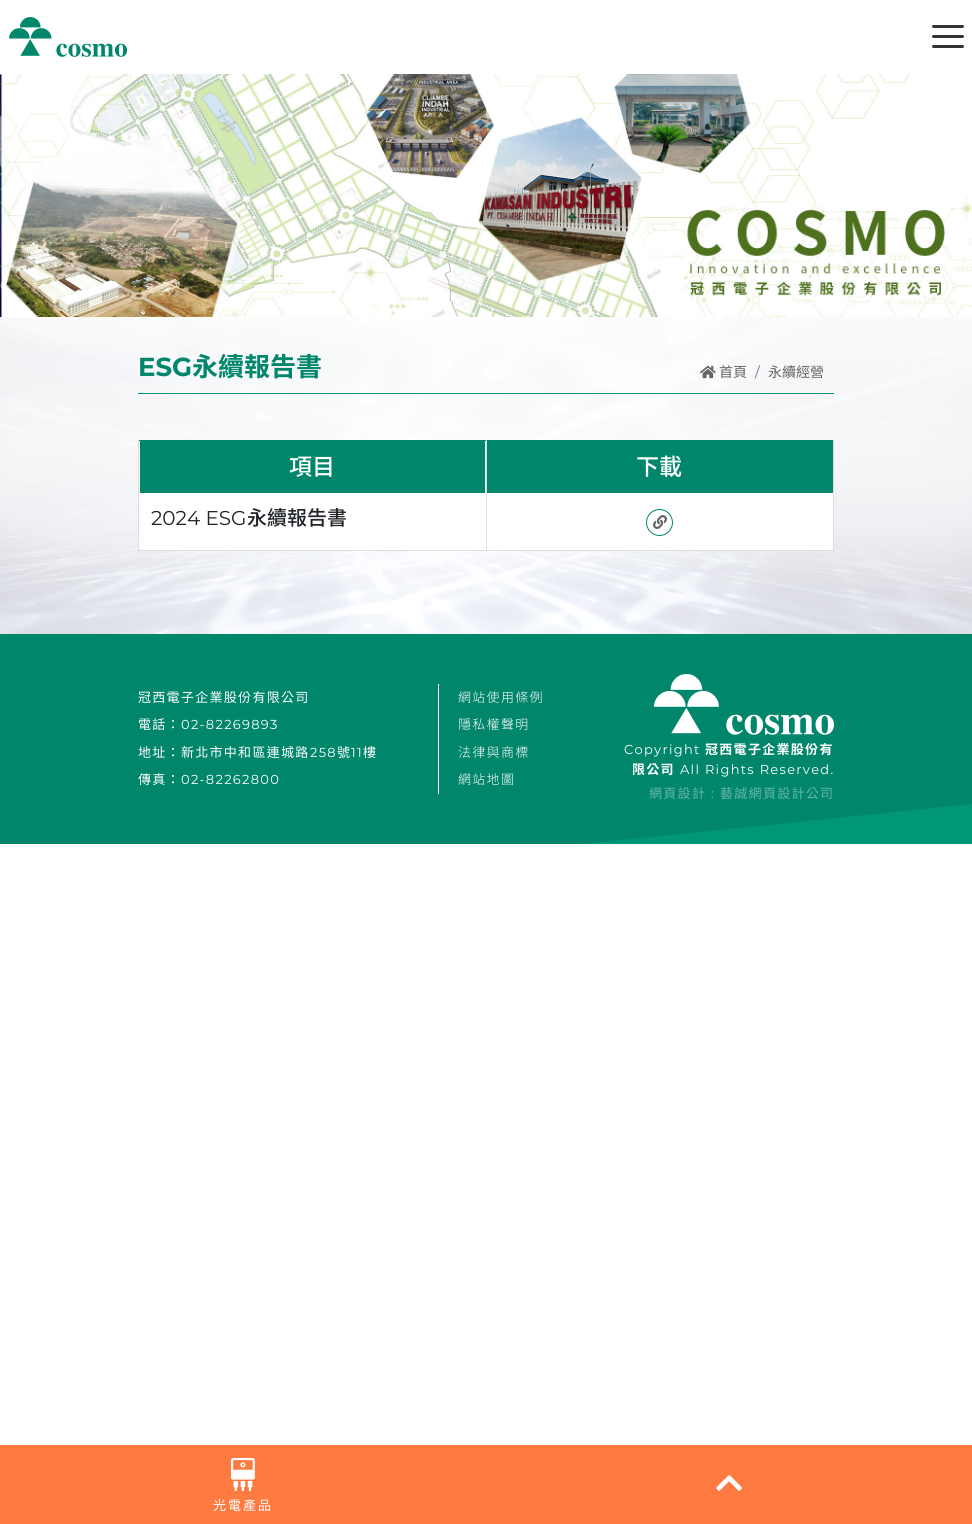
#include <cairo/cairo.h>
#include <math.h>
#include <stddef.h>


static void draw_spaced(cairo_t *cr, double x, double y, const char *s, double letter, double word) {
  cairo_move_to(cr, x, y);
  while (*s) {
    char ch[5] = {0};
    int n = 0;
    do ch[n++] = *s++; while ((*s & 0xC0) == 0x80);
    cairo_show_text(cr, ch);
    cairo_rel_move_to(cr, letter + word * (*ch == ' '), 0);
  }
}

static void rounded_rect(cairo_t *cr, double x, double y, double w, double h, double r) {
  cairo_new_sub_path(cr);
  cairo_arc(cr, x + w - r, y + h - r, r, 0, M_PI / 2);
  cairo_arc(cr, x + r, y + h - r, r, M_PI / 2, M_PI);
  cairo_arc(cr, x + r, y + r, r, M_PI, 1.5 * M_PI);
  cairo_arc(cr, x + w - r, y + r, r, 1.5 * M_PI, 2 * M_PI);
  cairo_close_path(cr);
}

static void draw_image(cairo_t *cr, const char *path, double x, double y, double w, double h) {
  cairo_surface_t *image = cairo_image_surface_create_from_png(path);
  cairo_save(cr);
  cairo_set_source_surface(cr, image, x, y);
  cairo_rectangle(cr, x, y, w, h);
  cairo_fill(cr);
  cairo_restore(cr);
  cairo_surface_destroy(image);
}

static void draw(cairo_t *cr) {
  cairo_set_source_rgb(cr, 1, 1, 1);
  cairo_paint(cr);
  draw_image(cr, "images/1.png", 9, 17, 118, 40);
  cairo_set_source_rgb(cr, 51 / 255.0, 51 / 255.0, 51 / 255.0);
  rounded_rect(cr, 932, 25, 32, 3, 1.5);
  cairo_fill(cr);
  rounded_rect(cr, 932, 35, 32, 3, 1.5);
  cairo_fill(cr);
  rounded_rect(cr, 932, 45, 32, 3, 1.5);
  cairo_fill(cr);
  draw_image(cr, "images/2.png", 5, 74, 746, 243);
  draw_image(cr, "images/3.png", 0, 74, 972, 243);
  draw_image(cr, "images/4.png", 0, 317, 972, 317);
  cairo_set_source_rgb(cr, 0, 150 / 255.0, 120 / 255.0);
  cairo_rectangle(cr, 138, 393, 696, 1);
  cairo_fill(cr);
  draw_image(cr, "images/5.png", 700, 365, 16, 14);
  cairo_set_source_rgb(cr, 1, 1, 1);
  cairo_rectangle(cr, 139, 441, 694, 109);
  cairo_fill(cr);
  cairo_set_source_rgb(cr, 0, 134 / 255.0, 107 / 255.0);
  cairo_rectangle(cr, 138, 440, 696, 1);
  cairo_fill(cr);
  cairo_rectangle(cr, 140, 441, 345, 52);
  cairo_fill(cr);
  cairo_set_source_rgb(cr, 221 / 255.0, 221 / 255.0, 221 / 255.0);
  cairo_rectangle(cr, 833, 440, 1, 111);
  cairo_fill(cr);
  cairo_rectangle(cr, 486, 550, 348, 1);
  cairo_fill(cr);
  cairo_rectangle(cr, 486, 493, 1, 58);
  cairo_fill(cr);
  cairo_set_source_rgb(cr, 1, 1, 1);
  cairo_rectangle(cr, 486, 493, 348, 1);
  cairo_fill(cr);
  cairo_set_source_rgb(cr, 221 / 255.0, 221 / 255.0, 221 / 255.0);
  cairo_rectangle(cr, 486, 440, 1, 54);
  cairo_fill(cr);
  cairo_rectangle(cr, 138, 550, 349, 1);
  cairo_fill(cr);
  cairo_rectangle(cr, 138, 493, 1, 58);
  cairo_fill(cr);
  cairo_set_source_rgb(cr, 1, 1, 1);
  cairo_rectangle(cr, 138, 493, 349, 1);
  cairo_fill(cr);
  cairo_set_source_rgb(cr, 221 / 255.0, 221 / 255.0, 221 / 255.0);
  cairo_rectangle(cr, 138, 440, 1, 54);
  cairo_fill(cr);
  cairo_set_source_rgb(cr, 0, 134 / 255.0, 107 / 255.0);
  cairo_rectangle(cr, 487, 441, 346, 52);
  cairo_fill(cr);
  cairo_arc(cr, 659.5, 522.5, 13, 0, 2 * M_PI);
  cairo_set_line_width(cr, 1);
  cairo_stroke(cr);
  draw_image(cr, "images/6.png", 653, 515, 14, 14);
  cairo_set_source_rgb(cr, 1, 122 / 255.0, 64 / 255.0);
  cairo_rectangle(cr, 0, 1445, 972, 79);
  cairo_fill(cr);
  draw_image(cr, "images/7.png", 716, 1475, 26, 16);
  draw_image(cr, "images/8.png", 231, 1458, 24, 33);
  cairo_set_source_rgb(cr, 0, 134 / 255.0, 107 / 255.0);
  cairo_rectangle(cr, 0, 634, 972, 210);
  cairo_fill(cr);
  cairo_set_source_rgb(cr, 1, 1, 1);
  cairo_rectangle(cr, 438, 684, 1, 110);
  cairo_fill(cr);
  draw_image(cr, "images/9.png", 654, 674, 180, 61);
  cairo_set_source_rgb(cr, 0, 150 / 255.0, 120 / 255.0);
  cairo_new_path(cr);
  cairo_move_to(cr, 972, 804);
  cairo_line_to(cr, 583, 844);
  cairo_line_to(cr, 972, 844);
  cairo_close_path(cr);
  cairo_fill(cr);
  cairo_select_font_face(cr, "Montserrat", CAIRO_FONT_SLANT_NORMAL, CAIRO_FONT_WEIGHT_BOLD);
  cairo_set_font_size(cr, 26);
  cairo_set_source_rgb(cr, 0, 134 / 255.0, 107 / 255.0);
  cairo_move_to(cr, 138, 376);
  cairo_show_text(cr, "ESG");
  cairo_select_font_face(cr, "Noto Sans TC", CAIRO_FONT_SLANT_NORMAL, CAIRO_FONT_WEIGHT_BOLD);
  cairo_move_to(cr, 192, 376);
  cairo_show_text(cr, "永續報告書");
  cairo_select_font_face(cr, "Noto Sans TC", CAIRO_FONT_SLANT_NORMAL, CAIRO_FONT_WEIGHT_NORMAL);
  cairo_set_font_size(cr, 14);
  cairo_set_source_rgb(cr, 102 / 255.0, 102 / 255.0, 102 / 255.0);
  cairo_move_to(cr, 719, 377);
  cairo_show_text(cr, "首頁");
  cairo_select_font_face(cr, "Montserrat", CAIRO_FONT_SLANT_NORMAL, CAIRO_FONT_WEIGHT_NORMAL);
  cairo_set_source_rgb(cr, 108 / 255.0, 117 / 255.0, 125 / 255.0);
  cairo_move_to(cr, 755, 377);
  cairo_show_text(cr, "/");
  cairo_select_font_face(cr, "Noto Sans TC", CAIRO_FONT_SLANT_NORMAL, CAIRO_FONT_WEIGHT_NORMAL);
  cairo_set_source_rgb(cr, 102 / 255.0, 102 / 255.0, 102 / 255.0);
  cairo_move_to(cr, 768, 377);
  cairo_show_text(cr, "永續經營");
  cairo_select_font_face(cr, "Noto Sans TC Medium", CAIRO_FONT_SLANT_NORMAL, CAIRO_FONT_WEIGHT_NORMAL);
  cairo_set_font_size(cr, 23);
  cairo_set_source_rgb(cr, 1, 1, 1);
  cairo_move_to(cr, 289, 475);
  cairo_show_text(cr, "項目");
  cairo_move_to(cr, 636, 475);
  cairo_show_text(cr, "下載");
  cairo_select_font_face(cr, "Montserrat", CAIRO_FONT_SLANT_NORMAL, CAIRO_FONT_WEIGHT_NORMAL);
  cairo_set_font_size(cr, 20);
  cairo_set_source_rgb(cr, 33 / 255.0, 37 / 255.0, 41 / 255.0);
  cairo_move_to(cr, 151, 525);
  cairo_show_text(cr, "2024 ESG");
  cairo_select_font_face(cr, "Noto Sans TC Medium", CAIRO_FONT_SLANT_NORMAL, CAIRO_FONT_WEIGHT_NORMAL);
  cairo_move_to(cr, 247, 525);
  cairo_show_text(cr, "永續報告書");
  cairo_select_font_face(cr, "Noto Sans TC", CAIRO_FONT_SLANT_NORMAL, CAIRO_FONT_WEIGHT_NORMAL);
  cairo_set_font_size(cr, 13);
  cairo_set_source_rgb(cr, 1, 1, 1);
  draw_spaced(cr, 213, 1510, "光電產品", 2, 0);
  draw_spaced(cr, 138, 702, "冠西電子企業股份有限公司", 1.3, 0);
  draw_spaced(cr, 138, 729, "電話：", 1.3, 0);
  cairo_select_font_face(cr, "Montserrat", CAIRO_FONT_SLANT_NORMAL, CAIRO_FONT_WEIGHT_NORMAL);
  draw_spaced(cr, 181, 729, "02-82269893", 1.3, 0);
  cairo_select_font_face(cr, "Noto Sans TC", CAIRO_FONT_SLANT_NORMAL, CAIRO_FONT_WEIGHT_NORMAL);
  draw_spaced(cr, 138, 757, "地址：新北市中和區連城路", 1.3, 0);
  cairo_select_font_face(cr, "Montserrat", CAIRO_FONT_SLANT_NORMAL, CAIRO_FONT_WEIGHT_NORMAL);
  draw_spaced(cr, 310, 757, "258", 1.3, 0);
  cairo_select_font_face(cr, "Noto Sans TC", CAIRO_FONT_SLANT_NORMAL, CAIRO_FONT_WEIGHT_NORMAL);
  draw_spaced(cr, 337, 757, "號", 1.3, 0);
  cairo_select_font_face(cr, "Montserrat", CAIRO_FONT_SLANT_NORMAL, CAIRO_FONT_WEIGHT_NORMAL);
  draw_spaced(cr, 351, 757, "11", 1.3, 0);
  cairo_select_font_face(cr, "Noto Sans TC", CAIRO_FONT_SLANT_NORMAL, CAIRO_FONT_WEIGHT_NORMAL);
  draw_spaced(cr, 363, 757, "樓", 1.3, 0);
  draw_spaced(cr, 138, 784, "傳真：", 1.3, 0);
  cairo_select_font_face(cr, "Montserrat", CAIRO_FONT_SLANT_NORMAL, CAIRO_FONT_WEIGHT_NORMAL);
  draw_spaced(cr, 181, 784, "02-82262800", 1.3, 0);
  cairo_select_font_face(cr, "Noto Sans TC Light", CAIRO_FONT_SLANT_NORMAL, CAIRO_FONT_WEIGHT_NORMAL);
  draw_spaced(cr, 458, 702, "網站使用條例", 1.3, 0);
  draw_spaced(cr, 458, 729, "隱私權聲明", 1.3, 0);
  draw_spaced(cr, 458, 757, "法律與商標", 1.3, 0);
  draw_spaced(cr, 458, 784, "網站地圖", 1.3, 0);
  cairo_select_font_face(cr, "Montserrat", CAIRO_FONT_SLANT_NORMAL, CAIRO_FONT_WEIGHT_NORMAL);
  draw_spaced(cr, 624, 754, "Copyright", 1.3, 0);
  cairo_select_font_face(cr, "Noto Sans TC", CAIRO_FONT_SLANT_NORMAL, CAIRO_FONT_WEIGHT_BOLD);
  draw_spaced(cr, 705, 754, "冠西電子企業股份有", 1.3, 0);
  draw_spaced(cr, 632, 774, "限公司", 1.3, 0);
  cairo_select_font_face(cr, "Montserrat", CAIRO_FONT_SLANT_NORMAL, CAIRO_FONT_WEIGHT_NORMAL);
  draw_spaced(cr, 680, 774, "All Rights Reserved.", 1.3, 0);
  cairo_select_font_face(cr, "Noto Sans TC", CAIRO_FONT_SLANT_NORMAL, CAIRO_FONT_WEIGHT_NORMAL);
  cairo_set_source_rgb(cr, 102 / 255.0, 182 / 255.0, 166 / 255.0);
  draw_spaced(cr, 649, 798, "網頁設計", 1.3, 0);
  cairo_select_font_face(cr, "Montserrat", CAIRO_FONT_SLANT_NORMAL, CAIRO_FONT_WEIGHT_NORMAL);
  draw_spaced(cr, 711, 798, ":", 1.3, 0);
  cairo_select_font_face(cr, "Noto Sans TC", CAIRO_FONT_SLANT_NORMAL, CAIRO_FONT_WEIGHT_NORMAL);
  draw_spaced(cr, 720, 798, "藝誠網頁設計公司", 1.3, 0);
}

int main(void) {
  cairo_surface_t *surface = cairo_image_surface_create(CAIRO_FORMAT_RGB24, 972, 1524);
  cairo_t *cr = cairo_create(surface);
  cairo_font_options_t *options = cairo_font_options_create();
  cairo_font_options_set_hint_metrics(options, CAIRO_HINT_METRICS_OFF);
  cairo_font_options_set_hint_style(options, CAIRO_HINT_STYLE_NONE);
  cairo_set_font_options(cr, options);
  cairo_set_miter_limit(cr, 4);
  draw(cr);
  cairo_surface_write_to_png(surface, "out.png");
  cairo_font_options_destroy(options);
  cairo_destroy(cr);
  cairo_surface_destroy(surface);
  return 0;
}
